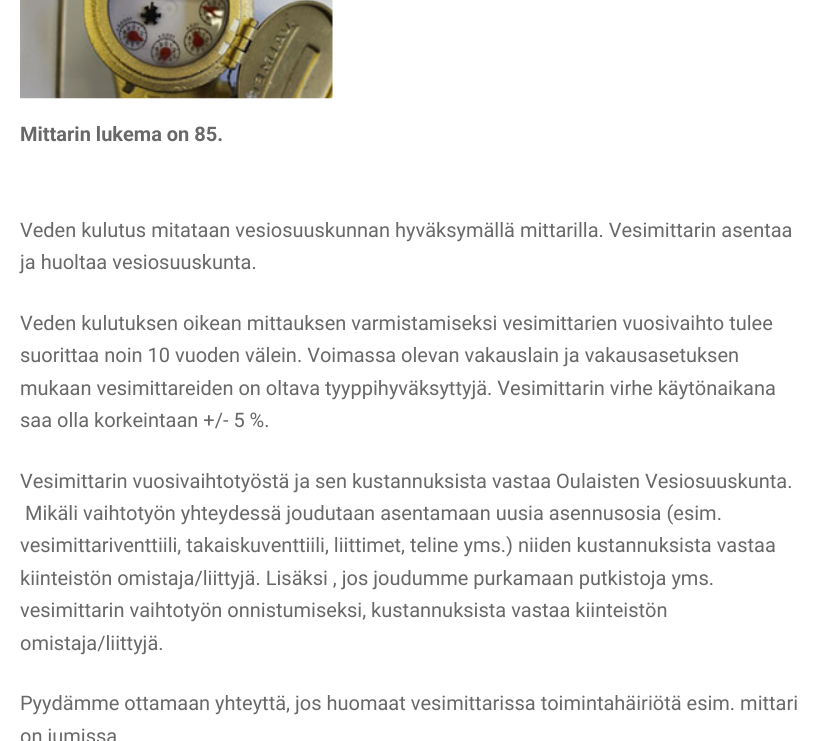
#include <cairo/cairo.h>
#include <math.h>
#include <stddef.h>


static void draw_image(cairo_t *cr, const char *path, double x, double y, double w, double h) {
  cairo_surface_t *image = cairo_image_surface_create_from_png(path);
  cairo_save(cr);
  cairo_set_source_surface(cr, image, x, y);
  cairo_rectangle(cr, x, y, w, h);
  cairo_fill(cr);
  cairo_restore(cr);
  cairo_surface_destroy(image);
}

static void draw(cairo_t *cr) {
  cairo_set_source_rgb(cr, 1, 1, 1);
  cairo_paint(cr);
  draw_image(cr, "images/1.png", 20, 0, 313, 99);
  cairo_select_font_face(cr, "Roboto", CAIRO_FONT_SLANT_NORMAL, CAIRO_FONT_WEIGHT_BOLD);
  cairo_set_font_size(cr, 20);
  cairo_set_source_rgb(cr, 104 / 255.0, 104 / 255.0, 104 / 255.0);
  cairo_move_to(cr, 20, 141);
  cairo_show_text(cr, "Mittarin lukema on 85.");
  cairo_select_font_face(cr, "Roboto", CAIRO_FONT_SLANT_NORMAL, CAIRO_FONT_WEIGHT_NORMAL);
  cairo_move_to(cr, 20, 237);
  cairo_show_text(cr, "Veden kulutus mitataan vesiosuuskunnan hyväksymällä mittarilla. Vesimittarin asentaa");
  cairo_move_to(cr, 20, 269);
  cairo_show_text(cr, "ja huoltaa vesiosuuskunta.");
  cairo_move_to(cr, 20, 330);
  cairo_show_text(cr, "Veden kulutuksen oikean mittauksen varmistamiseksi vesimittarien vuosivaihto tulee");
  cairo_move_to(cr, 20, 362);
  cairo_show_text(cr, "suorittaa noin 10 vuoden välein. Voimassa olevan vakauslain ja vakausasetuksen");
  cairo_move_to(cr, 20, 395);
  cairo_show_text(cr, "mukaan vesimittareiden on oltava tyyppihyväksyttyjä. Vesimittarin virhe käytönaikana");
  cairo_move_to(cr, 20, 427);
  cairo_show_text(cr, "saa olla korkeintaan +/- 5 %.");
  cairo_move_to(cr, 20, 488);
  cairo_show_text(cr, "Vesimittarin vuosivaihtotyöstä ja sen kustannuksista vastaa Oulaisten Vesiosuuskunta.");
  cairo_move_to(cr, 25, 520);
  cairo_show_text(cr, "Mikäli vaihtotyön yhteydessä joudutaan asentamaan uusia asennusosia (esim.");
  cairo_move_to(cr, 20, 552);
  cairo_show_text(cr, "vesimittariventtiili, takaiskuventtiili, liittimet, teline yms.) niiden kustannuksista vastaa");
  cairo_move_to(cr, 20, 585);
  cairo_show_text(cr, "kiinteistön omistaja/liittyjä. Lisäksi , jos joudumme purkamaan putkistoja yms.");
  cairo_move_to(cr, 20, 617);
  cairo_show_text(cr, "vesimittarin vaihtotyön onnistumiseksi, kustannuksista vastaa kiinteistön");
  cairo_move_to(cr, 20, 650);
  cairo_show_text(cr, "omistaja/liittyjä.");
  cairo_move_to(cr, 20, 710);
  cairo_show_text(cr, "Pyydämme ottamaan yhteyttä, jos huomaat vesimittarissa toimintahäiriötä esim. mittari");
  cairo_move_to(cr, 20, 743);
  cairo_show_text(cr, "on jumissa");
}

int main(void) {
  cairo_surface_t *surface = cairo_image_surface_create(CAIRO_FORMAT_RGB24, 827, 741);
  cairo_t *cr = cairo_create(surface);
  cairo_font_options_t *options = cairo_font_options_create();
  cairo_font_options_set_hint_metrics(options, CAIRO_HINT_METRICS_OFF);
  cairo_font_options_set_hint_style(options, CAIRO_HINT_STYLE_NONE);
  cairo_set_font_options(cr, options);
  cairo_set_miter_limit(cr, 4);
  draw(cr);
  cairo_surface_write_to_png(surface, "out.png");
  cairo_font_options_destroy(options);
  cairo_destroy(cr);
  cairo_surface_destroy(surface);
  return 0;
}
